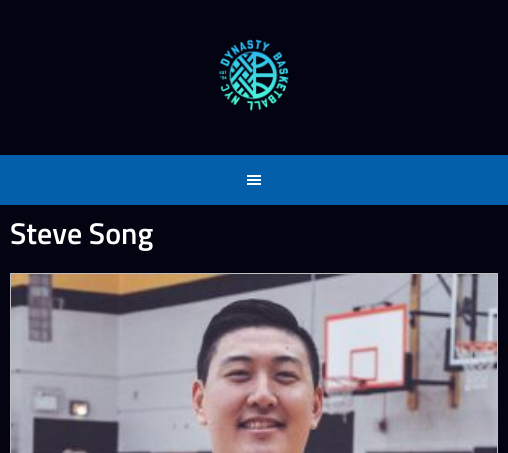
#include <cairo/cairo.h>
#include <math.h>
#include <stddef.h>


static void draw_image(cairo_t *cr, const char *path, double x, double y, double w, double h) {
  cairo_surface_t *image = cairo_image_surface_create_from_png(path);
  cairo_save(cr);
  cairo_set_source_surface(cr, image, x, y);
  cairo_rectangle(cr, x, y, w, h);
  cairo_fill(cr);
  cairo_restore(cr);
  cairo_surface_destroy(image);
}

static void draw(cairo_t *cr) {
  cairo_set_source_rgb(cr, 3 / 255.0, 3 / 255.0, 17 / 255.0);
  cairo_paint(cr);
  draw_image(cr, "images/1.png", 219, 39, 70, 72);
  cairo_set_source_rgb(cr, 3 / 255.0, 95 / 255.0, 170 / 255.0);
  cairo_rectangle(cr, 0, 155, 508, 50);
  cairo_fill(cr);
  draw_image(cr, "images/2.png", 247, 175, 14, 10);
  cairo_rectangle(cr, 10.5, 273.5, 487, 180);
  cairo_set_source_rgb(cr, 192 / 255.0, 192 / 255.0, 192 / 255.0);
  cairo_set_line_width(cr, 1);
  cairo_stroke(cr);
  draw_image(cr, "images/3.png", 11, 274, 486, 179);
  cairo_select_font_face(cr, "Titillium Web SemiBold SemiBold", CAIRO_FONT_SLANT_NORMAL, CAIRO_FONT_WEIGHT_NORMAL);
  cairo_set_font_size(cr, 30);
  cairo_set_source_rgb(cr, 1, 1, 1);
  cairo_move_to(cr, 10, 244);
  cairo_show_text(cr, "Steve Song");
}

int main(void) {
  cairo_surface_t *surface = cairo_image_surface_create(CAIRO_FORMAT_RGB24, 508, 453);
  cairo_t *cr = cairo_create(surface);
  cairo_font_options_t *options = cairo_font_options_create();
  cairo_font_options_set_hint_metrics(options, CAIRO_HINT_METRICS_OFF);
  cairo_font_options_set_hint_style(options, CAIRO_HINT_STYLE_NONE);
  cairo_set_font_options(cr, options);
  cairo_set_miter_limit(cr, 4);
  draw(cr);
  cairo_surface_write_to_png(surface, "out.png");
  cairo_font_options_destroy(options);
  cairo_destroy(cr);
  cairo_surface_destroy(surface);
  return 0;
}
